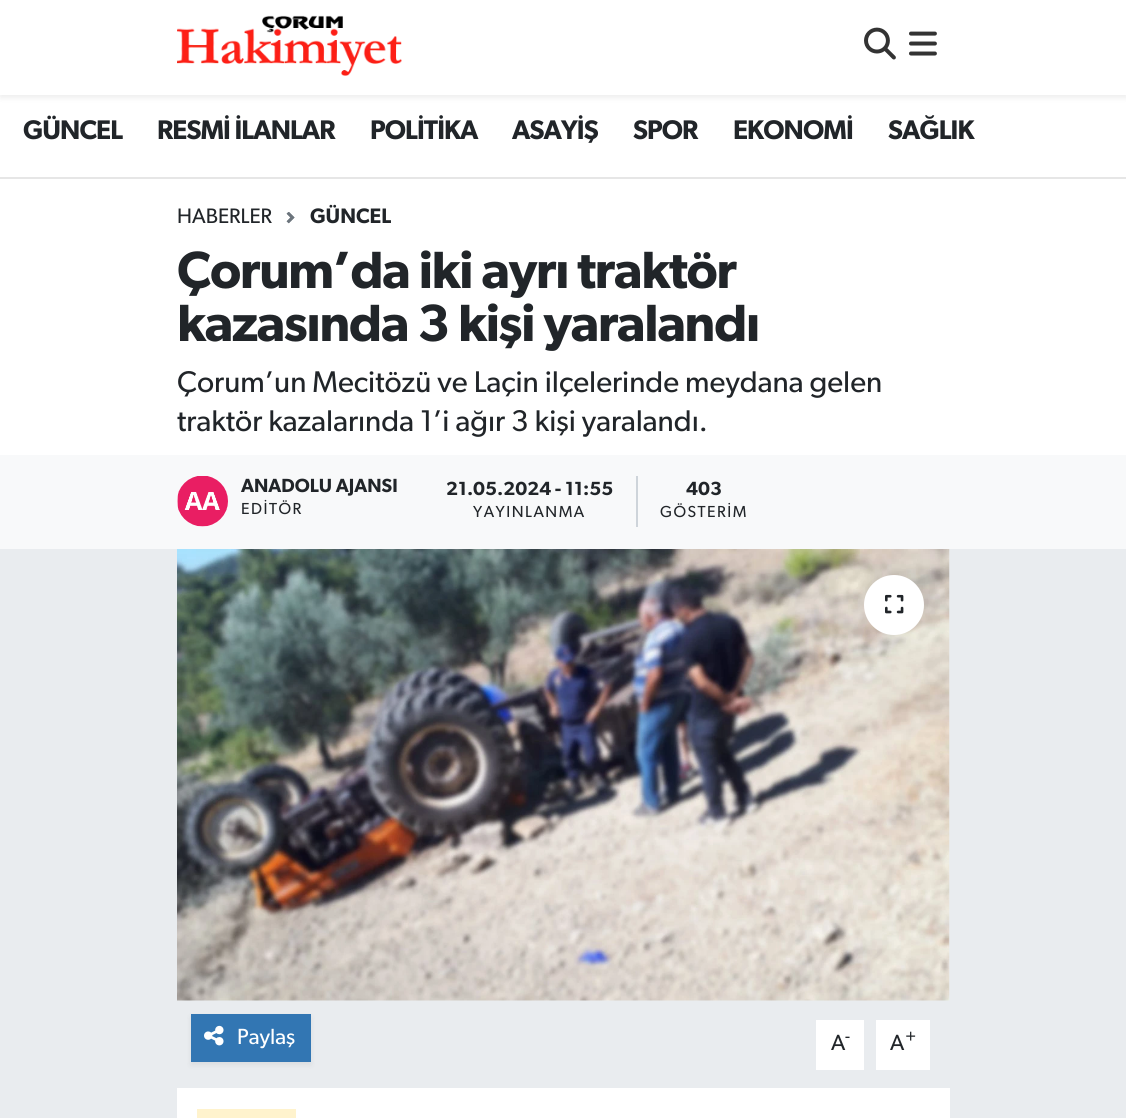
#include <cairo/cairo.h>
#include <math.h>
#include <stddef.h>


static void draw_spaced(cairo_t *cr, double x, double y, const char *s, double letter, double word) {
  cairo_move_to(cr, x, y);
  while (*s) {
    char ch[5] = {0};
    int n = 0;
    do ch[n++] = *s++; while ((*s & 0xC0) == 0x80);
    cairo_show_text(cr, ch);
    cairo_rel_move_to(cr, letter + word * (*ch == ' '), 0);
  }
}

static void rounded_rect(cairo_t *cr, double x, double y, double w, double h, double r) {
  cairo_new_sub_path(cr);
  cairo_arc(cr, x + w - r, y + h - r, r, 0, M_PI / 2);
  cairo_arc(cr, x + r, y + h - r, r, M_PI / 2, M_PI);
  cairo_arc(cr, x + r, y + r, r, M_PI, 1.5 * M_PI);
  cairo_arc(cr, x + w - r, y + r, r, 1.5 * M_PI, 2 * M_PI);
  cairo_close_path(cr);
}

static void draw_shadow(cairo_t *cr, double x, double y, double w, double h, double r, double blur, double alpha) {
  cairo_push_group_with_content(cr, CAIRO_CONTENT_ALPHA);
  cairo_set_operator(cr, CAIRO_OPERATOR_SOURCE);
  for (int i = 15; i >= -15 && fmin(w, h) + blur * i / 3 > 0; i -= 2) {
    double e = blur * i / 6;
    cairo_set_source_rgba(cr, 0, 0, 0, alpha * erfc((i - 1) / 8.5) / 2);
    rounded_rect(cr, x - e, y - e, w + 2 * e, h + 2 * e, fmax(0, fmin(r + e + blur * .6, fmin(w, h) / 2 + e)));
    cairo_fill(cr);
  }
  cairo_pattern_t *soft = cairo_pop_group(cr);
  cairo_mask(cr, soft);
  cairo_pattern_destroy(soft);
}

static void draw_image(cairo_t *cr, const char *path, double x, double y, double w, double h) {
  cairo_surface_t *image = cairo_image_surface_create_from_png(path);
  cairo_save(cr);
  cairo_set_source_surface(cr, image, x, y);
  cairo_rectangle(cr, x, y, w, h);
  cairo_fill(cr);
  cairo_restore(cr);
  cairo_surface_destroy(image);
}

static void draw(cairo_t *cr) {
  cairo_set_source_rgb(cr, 233 / 255.0, 236 / 255.0, 239 / 255.0);
  cairo_paint(cr);
  cairo_set_source_rgb(cr, 1, 1, 1);
  cairo_rectangle(cr, 0, 95, 1126, 82);
  cairo_fill(cr);
  cairo_set_source_rgb(cr, 0, 0, 0);
  draw_shadow(cr, 0, 3, 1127, 95, 0, 3, 0.07);
  cairo_set_source_rgb(cr, 1, 1, 1);
  cairo_rectangle(cr, 0, 0, 1126, 95);
  cairo_fill(cr);
  draw_image(cr, "images/1.png", 177, 15, 225, 61);
  draw_image(cr, "images/2.png", 864, 27, 32, 33);
  draw_image(cr, "images/3.png", 909, 31, 28, 25);
  cairo_set_source_rgb(cr, 230 / 255.0, 230 / 255.0, 230 / 255.0);
  cairo_rectangle(cr, 0, 177, 1126, 2);
  cairo_fill(cr);
  cairo_set_source_rgb(cr, 1, 1, 1);
  cairo_rectangle(cr, 0, 179, 1126, 276);
  cairo_fill(cr);
  draw_image(cr, "images/4.png", 286, 212, 9, 12);
  cairo_set_source_rgb(cr, 248 / 255.0, 249 / 255.0, 250 / 255.0);
  cairo_rectangle(cr, 0, 455, 1126, 94);
  cairo_fill(cr);
  draw_image(cr, "images/5.png", 177, 476, 51, 51);
  cairo_set_source_rgb(cr, 206 / 255.0, 212 / 255.0, 218 / 255.0);
  cairo_rectangle(cr, 636, 476, 2, 51);
  cairo_fill(cr);
  draw_image(cr, "images/6.png", 177, 549, 773, 452);
  cairo_set_source_rgb(cr, 1, 1, 1);
  cairo_arc(cr, 894, 605, 30, 0, 2 * M_PI);
  cairo_fill(cr);
  draw_image(cr, "images/7.png", 885, 594, 19, 20);
  cairo_set_source_rgb(cr, 0, 0, 0);
  draw_shadow(cr, 191, 1017, 120, 48, 0, 3, 0.07);
  cairo_set_source_rgb(cr, 50 / 255.0, 118 / 255.0, 179 / 255.0);
  cairo_rectangle(cr, 191, 1014, 120, 48);
  cairo_fill(cr);
  draw_image(cr, "images/8.png", 204, 1025, 20, 21);
  cairo_set_source_rgb(cr, 1, 1, 1);
  cairo_rectangle(cr, 816, 1020, 48, 50);
  cairo_fill(cr);
  cairo_rectangle(cr, 876, 1020, 54, 50);
  cairo_fill(cr);
  cairo_rectangle(cr, 177, 1088, 773, 30);
  cairo_fill(cr);
  cairo_set_source_rgb(cr, 1, 243 / 255.0, 205 / 255.0);
  cairo_rectangle(cr, 197, 1109, 99, 9);
  cairo_fill(cr);
  cairo_select_font_face(cr, "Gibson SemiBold", CAIRO_FONT_SLANT_NORMAL, CAIRO_FONT_WEIGHT_NORMAL);
  cairo_set_font_size(cr, 27);
  cairo_set_source_rgb(cr, 33 / 255.0, 37 / 255.0, 41 / 255.0);
  draw_spaced(cr, 23, 139, "GÜNCEL", -0.9, 0);
  draw_spaced(cr, 157, 139, "RESMİ İLANLAR", -0.9, 0);
  draw_spaced(cr, 370, 139, "POLİTİKA", -0.9, 0);
  draw_spaced(cr, 512, 139, "ASAYİŞ", -0.9, 0);
  draw_spaced(cr, 633, 139, "SPOR", -0.9, 0);
  draw_spaced(cr, 733, 139, "EKONOMİ", -0.9, 0);
  draw_spaced(cr, 888, 139, "SAĞLIK", -0.9, 0);
  cairo_select_font_face(cr, "Gibson", CAIRO_FONT_SLANT_NORMAL, CAIRO_FONT_WEIGHT_NORMAL);
  cairo_set_font_size(cr, 21);
  cairo_move_to(cr, 177, 223);
  cairo_show_text(cr, "HABERLER");
  cairo_select_font_face(cr, "Gibson SemiBold", CAIRO_FONT_SLANT_NORMAL, CAIRO_FONT_WEIGHT_NORMAL);
  cairo_move_to(cr, 310, 223);
  cairo_show_text(cr, "GÜNCEL");
  cairo_set_font_size(cr, 52.5);
  draw_spaced(cr, 177, 288, "Çorum’da iki ayrı traktör", -1.2, 0);
  draw_spaced(cr, 177, 341, "kazasında 3 kişi yaralandı", -1.2, 0);
  cairo_select_font_face(cr, "Gibson", CAIRO_FONT_SLANT_NORMAL, CAIRO_FONT_WEIGHT_NORMAL);
  cairo_set_font_size(cr, 30);
  cairo_move_to(cr, 177, 392);
  cairo_show_text(cr, "Çorum’un Mecitözü ve Laçin ilçelerinde meydana gelen");
  cairo_move_to(cr, 177, 431);
  cairo_show_text(cr, "traktör kazalarında 1’i ağır 3 kişi yaralandı.");
  cairo_select_font_face(cr, "Gibson SemiBold", CAIRO_FONT_SLANT_NORMAL, CAIRO_FONT_WEIGHT_NORMAL);
  cairo_set_font_size(cr, 19.1);
  cairo_move_to(cr, 241, 492);
  cairo_show_text(cr, "ANADOLU AJANSI");
  cairo_select_font_face(cr, "Gibson", CAIRO_FONT_SLANT_NORMAL, CAIRO_FONT_WEIGHT_NORMAL);
  cairo_set_font_size(cr, 16);
  draw_spaced(cr, 241, 514, "EDİTÖR", 1.5, 0);
  cairo_select_font_face(cr, "Gibson SemiBold", CAIRO_FONT_SLANT_NORMAL, CAIRO_FONT_WEIGHT_NORMAL);
  cairo_set_font_size(cr, 19.1);
  cairo_move_to(cr, 446, 495);
  cairo_show_text(cr, "21.05.2024 - 11:55");
  cairo_select_font_face(cr, "Gibson", CAIRO_FONT_SLANT_NORMAL, CAIRO_FONT_WEIGHT_NORMAL);
  cairo_set_font_size(cr, 16);
  draw_spaced(cr, 473, 517, "YAYINLANMA", 1.5, 0);
  cairo_select_font_face(cr, "Gibson SemiBold", CAIRO_FONT_SLANT_NORMAL, CAIRO_FONT_WEIGHT_NORMAL);
  cairo_set_font_size(cr, 19.1);
  cairo_move_to(cr, 686, 495);
  cairo_show_text(cr, "403");
  cairo_select_font_face(cr, "Gibson", CAIRO_FONT_SLANT_NORMAL, CAIRO_FONT_WEIGHT_NORMAL);
  cairo_set_font_size(cr, 16);
  draw_spaced(cr, 660, 517, "GÖSTERİM", 1.5, 0);
  cairo_set_font_size(cr, 22);
  cairo_set_source_rgb(cr, 1, 1, 1);
  cairo_move_to(cr, 237, 1044);
  cairo_show_text(cr, "Paylaş");
  cairo_set_source_rgb(cr, 33 / 255.0, 37 / 255.0, 41 / 255.0);
  cairo_move_to(cr, 831, 1050);
  cairo_show_text(cr, "A");
  cairo_set_font_size(cr, 17);
  cairo_move_to(cr, 845, 1042);
  cairo_show_text(cr, "-");
  cairo_set_font_size(cr, 22);
  cairo_move_to(cr, 890, 1050);
  cairo_show_text(cr, "A");
  cairo_set_font_size(cr, 17);
  cairo_move_to(cr, 905, 1042);
  cairo_show_text(cr, "+");
}

int main(void) {
  cairo_surface_t *surface = cairo_image_surface_create(CAIRO_FORMAT_RGB24, 1126, 1118);
  cairo_t *cr = cairo_create(surface);
  cairo_font_options_t *options = cairo_font_options_create();
  cairo_font_options_set_hint_metrics(options, CAIRO_HINT_METRICS_OFF);
  cairo_font_options_set_hint_style(options, CAIRO_HINT_STYLE_NONE);
  cairo_set_font_options(cr, options);
  cairo_set_miter_limit(cr, 4);
  draw(cr);
  cairo_surface_write_to_png(surface, "out.png");
  cairo_font_options_destroy(options);
  cairo_destroy(cr);
  cairo_surface_destroy(surface);
  return 0;
}
